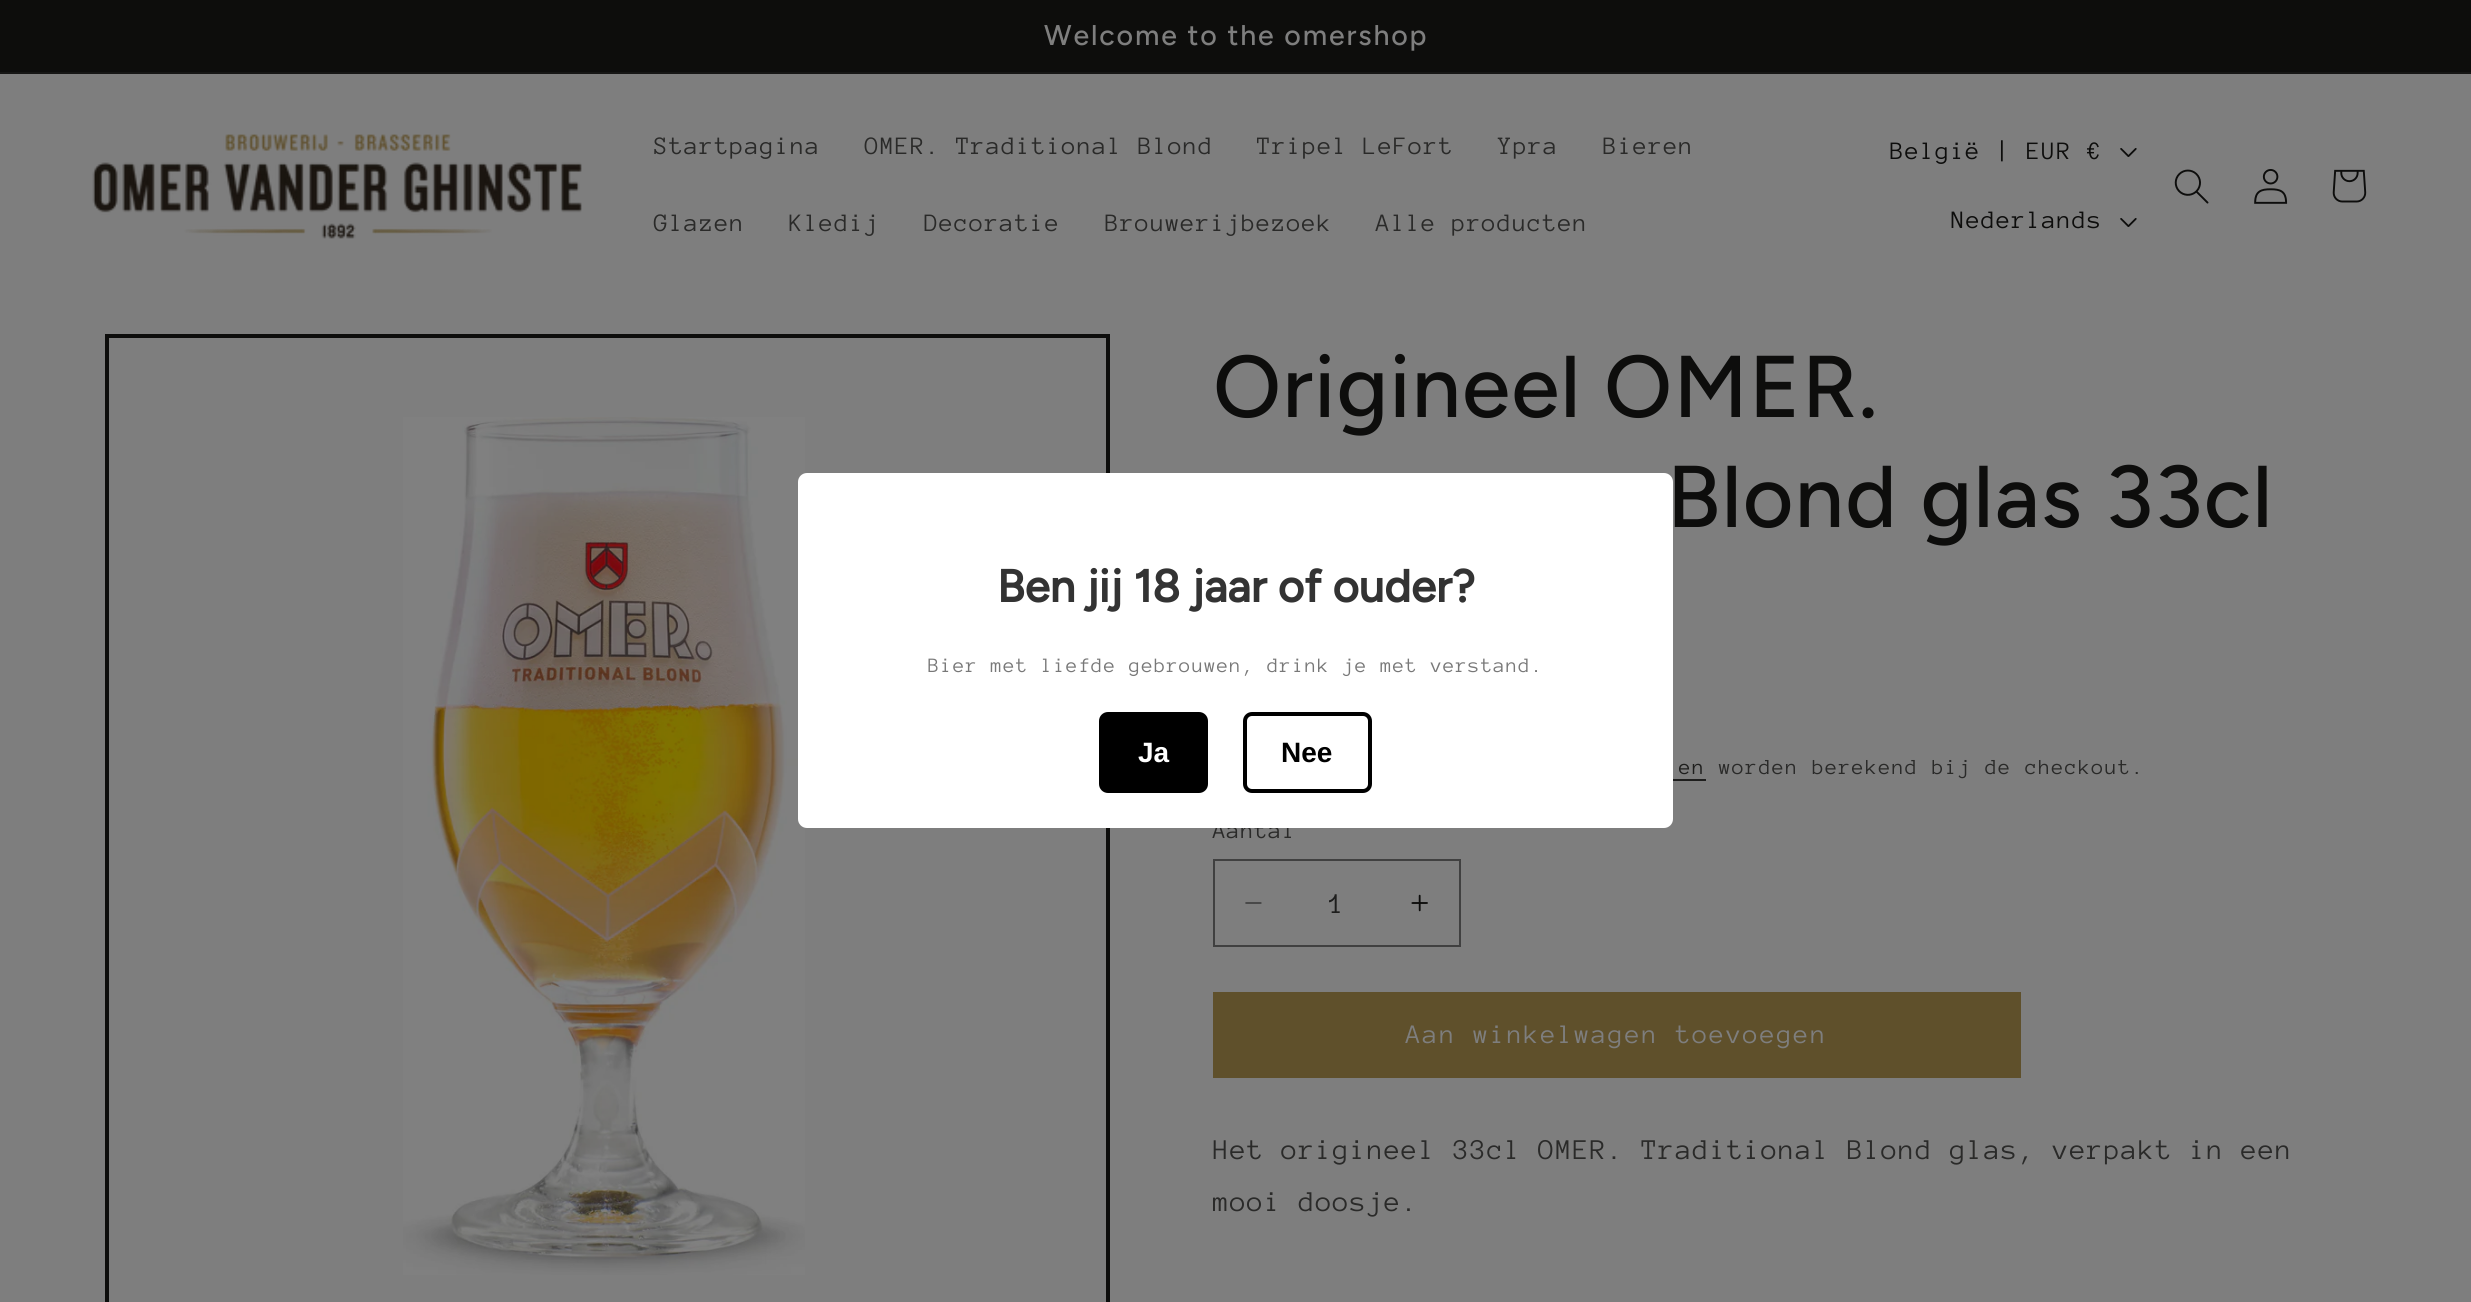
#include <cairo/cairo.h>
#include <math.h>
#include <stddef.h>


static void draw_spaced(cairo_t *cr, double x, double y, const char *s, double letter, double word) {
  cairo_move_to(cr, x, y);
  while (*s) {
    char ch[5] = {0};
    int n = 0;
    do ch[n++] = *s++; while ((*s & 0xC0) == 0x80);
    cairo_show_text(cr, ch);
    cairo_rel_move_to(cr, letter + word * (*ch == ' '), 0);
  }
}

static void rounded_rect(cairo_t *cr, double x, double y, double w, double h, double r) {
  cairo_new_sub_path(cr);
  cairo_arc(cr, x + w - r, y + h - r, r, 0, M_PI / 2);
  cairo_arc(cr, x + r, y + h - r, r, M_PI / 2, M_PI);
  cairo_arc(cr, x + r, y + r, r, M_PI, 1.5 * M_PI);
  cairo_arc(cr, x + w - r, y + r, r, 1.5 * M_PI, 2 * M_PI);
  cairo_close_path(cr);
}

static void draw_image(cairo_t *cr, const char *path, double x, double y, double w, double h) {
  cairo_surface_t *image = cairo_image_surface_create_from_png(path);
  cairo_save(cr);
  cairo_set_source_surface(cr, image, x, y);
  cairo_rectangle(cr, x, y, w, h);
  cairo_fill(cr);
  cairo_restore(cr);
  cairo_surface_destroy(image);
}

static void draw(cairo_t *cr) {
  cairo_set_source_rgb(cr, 126 / 255.0, 126 / 255.0, 126 / 255.0);
  cairo_paint(cr);
  cairo_set_source_rgb(cr, 13 / 255.0, 13 / 255.0, 12 / 255.0);
  cairo_rectangle(cr, 0, 0, 2471, 72);
  cairo_fill(cr);
  cairo_set_source_rgb(cr, 22 / 255.0, 22 / 255.0, 21 / 255.0);
  cairo_rectangle(cr, 0, 72, 2471, 2);
  cairo_fill(cr);
  draw_image(cr, "images/1.png", 92, 134, 490, 105);
  draw_image(cr, "images/2.png", 2120, 148, 17, 9);
  draw_image(cr, "images/2.png", 2120, 218, 17, 9);
  draw_image(cr, "images/3.png", 2174, 169, 35, 35);
  draw_image(cr, "images/4.png", 2254, 169, 34, 35);
  draw_image(cr, "images/5.png", 2332, 169, 35, 34);
  cairo_rectangle(cr, 107, 336, 1001, 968);
  cairo_set_source_rgb(cr, 13 / 255.0, 13 / 255.0, 12 / 255.0);
  cairo_set_line_width(cr, 4);
  cairo_stroke(cr);
  draw_image(cr, "images/6.png", 403, 417, 402, 858);
  cairo_set_source_rgb(cr, 30 / 255.0, 30 / 255.0, 29 / 255.0);
  cairo_rectangle(cr, 1673, 779, 33, 2);
  cairo_fill(cr);
  draw_image(cr, "images/7.png", 1245, 902, 17, 2);
  draw_image(cr, "images/8.png", 1411, 894, 17, 18);
  cairo_rectangle(cr, 1214, 860, 246, 86);
  cairo_set_source_rgb(cr, 64 / 255.0, 64 / 255.0, 64 / 255.0);
  cairo_set_line_width(cr, 2);
  cairo_stroke(cr);
  cairo_set_source_rgb(cr, 95 / 255.0, 80 / 255.0, 43 / 255.0);
  cairo_rectangle(cr, 1213, 992, 808, 86);
  cairo_fill(cr);
  cairo_select_font_face(cr, "Figtree Medium", CAIRO_FONT_SLANT_NORMAL, CAIRO_FONT_WEIGHT_NORMAL);
  cairo_set_font_size(cr, 28.5);
  cairo_set_source_rgb(cr, 126 / 255.0, 126 / 255.0, 126 / 255.0);
  draw_spaced(cr, 1044, 45, "Welcome to the omershop", 1.85, 0);
  cairo_select_font_face(cr, "Anonymous Pro", CAIRO_FONT_SLANT_NORMAL, CAIRO_FONT_WEIGHT_NORMAL);
  cairo_set_font_size(cr, 25.75);
  cairo_set_source_rgb(cr, 42 / 255.0, 42 / 255.0, 41 / 255.0);
  draw_spaced(cr, 654, 154, "Startpagina", 1.1, 0);
  draw_spaced(cr, 865, 154, "OMER. Traditional Blond", 1.1, 0);
  draw_spaced(cr, 1257, 154, "Tripel LeFort", 1.1, 0);
  draw_spaced(cr, 1498, 154, "Ypra", 1.1, 0);
  draw_spaced(cr, 1603, 154, "Bieren", 1.1, 0);
  draw_spaced(cr, 654, 231, "Glazen", 1.1, 0);
  draw_spaced(cr, 789, 231, "Kledij", 1.1, 0);
  draw_spaced(cr, 924, 231, "Decoratie", 1.1, 0);
  draw_spaced(cr, 1105, 231, "Brouwerijbezoek", 1.1, 0);
  draw_spaced(cr, 1376, 231, "Alle producten", 1.1, 0);
  cairo_set_source_rgb(cr, 13 / 255.0, 13 / 255.0, 12 / 255.0);
  draw_spaced(cr, 1890, 159, "België | EUR €", 1.1, 0);
  draw_spaced(cr, 1951, 228, "Nederlands", 1.1, 0);
  cairo_select_font_face(cr, "Figtree Medium", CAIRO_FONT_SLANT_NORMAL, CAIRO_FONT_WEIGHT_NORMAL);
  cairo_set_font_size(cr, 87.5);
  draw_spaced(cr, 1213, 417, "Origineel OMER.", 1.25, 0);
  draw_spaced(cr, 1667, 527, "Blond glas 33cl", 1.25, 0);
  cairo_select_font_face(cr, "Anonymous Pro", CAIRO_FONT_SLANT_NORMAL, CAIRO_FONT_WEIGHT_NORMAL);
  cairo_set_font_size(cr, 22);
  cairo_set_source_rgb(cr, 30 / 255.0, 30 / 255.0, 29 / 255.0);
  draw_spaced(cr, 1679, 774, "en", 1.3, 0);
  cairo_set_source_rgb(cr, 42 / 255.0, 42 / 255.0, 41 / 255.0);
  draw_spaced(cr, 1719, 774, "worden berekend bij de checkout.", 1.3, 0);
  cairo_set_font_size(cr, 24);
  draw_spaced(cr, 1213, 838, "Aantal", 0.75, 0);
  cairo_set_font_size(cr, 29.4);
  cairo_set_source_rgb(cr, 30 / 255.0, 30 / 255.0, 29 / 255.0);
  cairo_move_to(cr, 1329, 913);
  cairo_show_text(cr, "1");
  cairo_set_font_size(cr, 27.5);
  cairo_set_source_rgb(cr, 126 / 255.0, 126 / 255.0, 126 / 255.0);
  draw_spaced(cr, 1406, 1043, "Aan winkelwagen toevoegen", 1.85, 0);
  cairo_set_font_size(cr, 29.4);
  cairo_set_source_rgb(cr, 42 / 255.0, 42 / 255.0, 41 / 255.0);
  draw_spaced(cr, 1213, 1159, "Het origineel 33cl OMER. Traditional Blond glas, verpakt in een", 1.1, -0.1);
  draw_spaced(cr, 1213, 1211, "mooi doosje.", 1.1, 0);
  cairo_set_source_rgb(cr, 1, 1, 1);
  rounded_rect(cr, 798, 473, 875, 355, 9);
  cairo_fill(cr);
  cairo_select_font_face(cr, "Figtree", CAIRO_FONT_SLANT_NORMAL, CAIRO_FONT_WEIGHT_BOLD);
  cairo_set_font_size(cr, 45.5);
  cairo_set_source_rgb(cr, 51 / 255.0, 51 / 255.0, 51 / 255.0);
  cairo_move_to(cr, 997, 602);
  cairo_show_text(cr, "Ben jij 18 jaar of ouder?");
  cairo_select_font_face(cr, "Anonymous Pro", CAIRO_FONT_SLANT_NORMAL, CAIRO_FONT_WEIGHT_NORMAL);
  cairo_set_font_size(cr, 21);
  cairo_set_source_rgb(cr, 120 / 255.0, 120 / 255.0, 120 / 255.0);
  draw_spaced(cr, 928, 672, "Bier met liefde gebrouwen, drink je met verstand.", 1.1, 0);
  cairo_set_source_rgb(cr, 0, 0, 0);
  rounded_rect(cr, 1101, 714, 105, 77, 7);
  cairo_fill_preserve(cr);
  cairo_set_line_width(cr, 4);
  cairo_stroke(cr);
  cairo_select_font_face(cr, "Liberation Sans", CAIRO_FONT_SLANT_NORMAL, CAIRO_FONT_WEIGHT_BOLD);
  cairo_set_font_size(cr, 28);
  cairo_set_source_rgb(cr, 1, 1, 1);
  cairo_move_to(cr, 1138, 762);
  cairo_show_text(cr, "Ja");
  rounded_rect(cr, 1245, 714, 125, 77, 7);
  cairo_set_source_rgb(cr, 0, 0, 0);
  cairo_stroke(cr);
  cairo_move_to(cr, 1281, 762);
  cairo_show_text(cr, "Nee");
}

int main(void) {
  cairo_surface_t *surface = cairo_image_surface_create(CAIRO_FORMAT_RGB24, 2471, 1302);
  cairo_t *cr = cairo_create(surface);
  cairo_font_options_t *options = cairo_font_options_create();
  cairo_font_options_set_hint_metrics(options, CAIRO_HINT_METRICS_OFF);
  cairo_font_options_set_hint_style(options, CAIRO_HINT_STYLE_NONE);
  cairo_set_font_options(cr, options);
  cairo_set_miter_limit(cr, 4);
  draw(cr);
  cairo_surface_write_to_png(surface, "out.png");
  cairo_font_options_destroy(options);
  cairo_destroy(cr);
  cairo_surface_destroy(surface);
  return 0;
}
